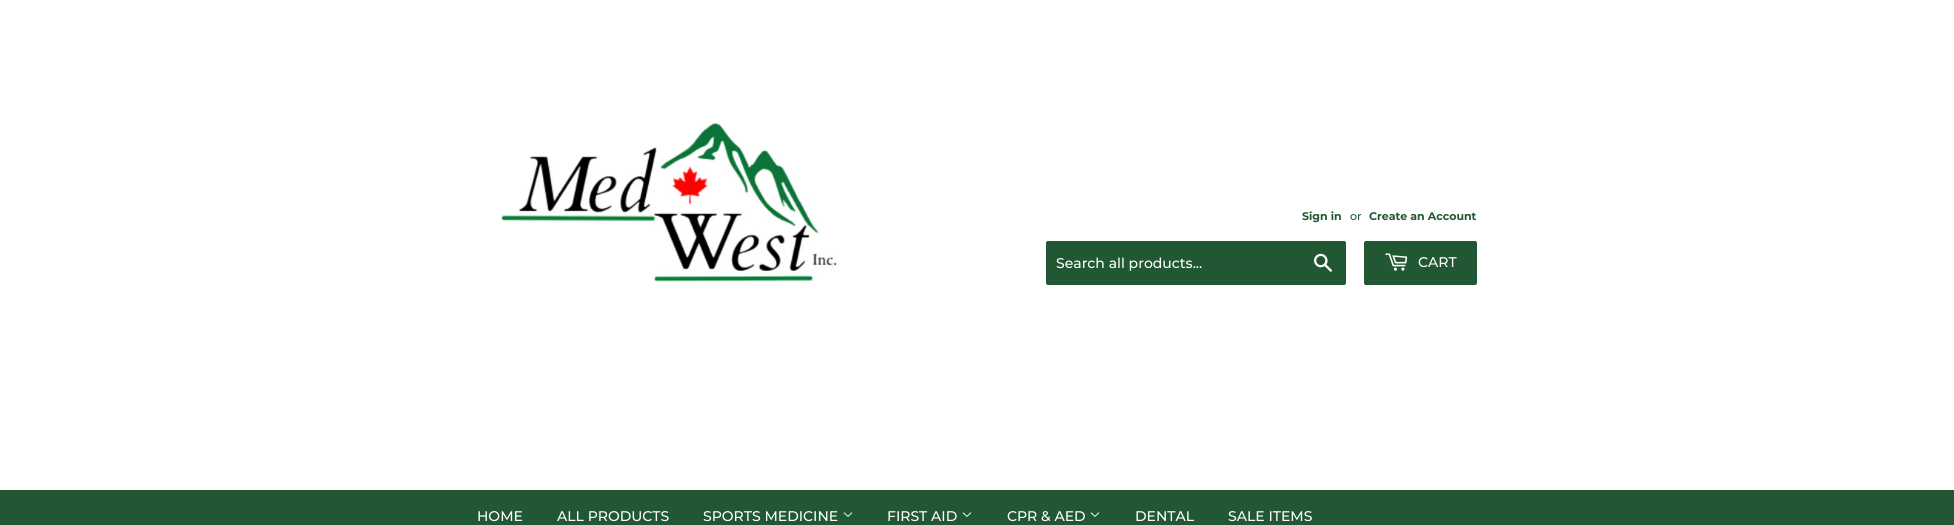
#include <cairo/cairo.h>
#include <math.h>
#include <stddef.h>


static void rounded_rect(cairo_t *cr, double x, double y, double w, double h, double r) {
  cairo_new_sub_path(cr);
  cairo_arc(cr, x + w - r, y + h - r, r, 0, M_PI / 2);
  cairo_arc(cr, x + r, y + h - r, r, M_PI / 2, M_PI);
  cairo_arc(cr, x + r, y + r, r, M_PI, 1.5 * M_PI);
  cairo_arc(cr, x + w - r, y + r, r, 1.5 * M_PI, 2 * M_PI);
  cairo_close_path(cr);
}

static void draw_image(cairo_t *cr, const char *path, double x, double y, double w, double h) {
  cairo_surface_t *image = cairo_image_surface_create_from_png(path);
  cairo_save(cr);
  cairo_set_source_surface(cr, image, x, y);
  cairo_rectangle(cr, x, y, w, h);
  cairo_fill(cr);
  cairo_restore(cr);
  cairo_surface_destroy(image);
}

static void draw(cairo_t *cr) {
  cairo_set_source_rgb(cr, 1, 1, 1);
  cairo_paint(cr);
  draw_image(cr, "images/1.png", 501, 123, 336, 159);
  cairo_set_source_rgb(cr, 33 / 255.0, 87 / 255.0, 50 / 255.0);
  rounded_rect(cr, 1046, 241, 300, 44, 2);
  cairo_fill(cr);
  draw_image(cr, "images/2.png", 1314, 253, 18, 19);
  rounded_rect(cr, 1364, 241, 113, 44, 2);
  cairo_fill(cr);
  draw_image(cr, "images/3.png", 1385, 253, 23, 18);
  cairo_rectangle(cr, 0, 490, 1954, 35);
  cairo_fill(cr);
  draw_image(cr, "images/4.png", 843, 512, 10, 5);
  draw_image(cr, "images/4.png", 962, 512, 10, 5);
  draw_image(cr, "images/4.png", 1090, 512, 10, 5);
  cairo_select_font_face(cr, "Montserrat", CAIRO_FONT_SLANT_NORMAL, CAIRO_FONT_WEIGHT_BOLD);
  cairo_set_font_size(cr, 11);
  cairo_move_to(cr, 1302, 220);
  cairo_show_text(cr, "Sign in");
  cairo_select_font_face(cr, "Montserrat Medium", CAIRO_FONT_SLANT_NORMAL, CAIRO_FONT_WEIGHT_NORMAL);
  cairo_move_to(cr, 1350, 220);
  cairo_show_text(cr, "or");
  cairo_select_font_face(cr, "Montserrat", CAIRO_FONT_SLANT_NORMAL, CAIRO_FONT_WEIGHT_BOLD);
  cairo_move_to(cr, 1369, 220);
  cairo_show_text(cr, "Create an Account");
  cairo_select_font_face(cr, "Montserrat Medium", CAIRO_FONT_SLANT_NORMAL, CAIRO_FONT_WEIGHT_NORMAL);
  cairo_set_font_size(cr, 14);
  cairo_set_source_rgb(cr, 1, 1, 1);
  cairo_move_to(cr, 1056, 268);
  cairo_show_text(cr, "Search all products...");
  cairo_move_to(cr, 1418, 267);
  cairo_show_text(cr, "CART");
  cairo_move_to(cr, 477, 521);
  cairo_show_text(cr, "HOME");
  cairo_move_to(cr, 557, 521);
  cairo_show_text(cr, "ALL PRODUCTS");
  cairo_move_to(cr, 703, 521);
  cairo_show_text(cr, "SPORTS MEDICINE");
  cairo_move_to(cr, 887, 521);
  cairo_show_text(cr, "FIRST AID");
  cairo_move_to(cr, 1007, 521);
  cairo_show_text(cr, "CPR & AED");
  cairo_move_to(cr, 1135, 521);
  cairo_show_text(cr, "DENTAL");
  cairo_move_to(cr, 1228, 521);
  cairo_show_text(cr, "SALE ITEMS");
}

int main(void) {
  cairo_surface_t *surface = cairo_image_surface_create(CAIRO_FORMAT_RGB24, 1954, 525);
  cairo_t *cr = cairo_create(surface);
  cairo_font_options_t *options = cairo_font_options_create();
  cairo_font_options_set_hint_metrics(options, CAIRO_HINT_METRICS_OFF);
  cairo_font_options_set_hint_style(options, CAIRO_HINT_STYLE_NONE);
  cairo_set_font_options(cr, options);
  cairo_set_miter_limit(cr, 4);
  draw(cr);
  cairo_surface_write_to_png(surface, "out.png");
  cairo_font_options_destroy(options);
  cairo_destroy(cr);
  cairo_surface_destroy(surface);
  return 0;
}
